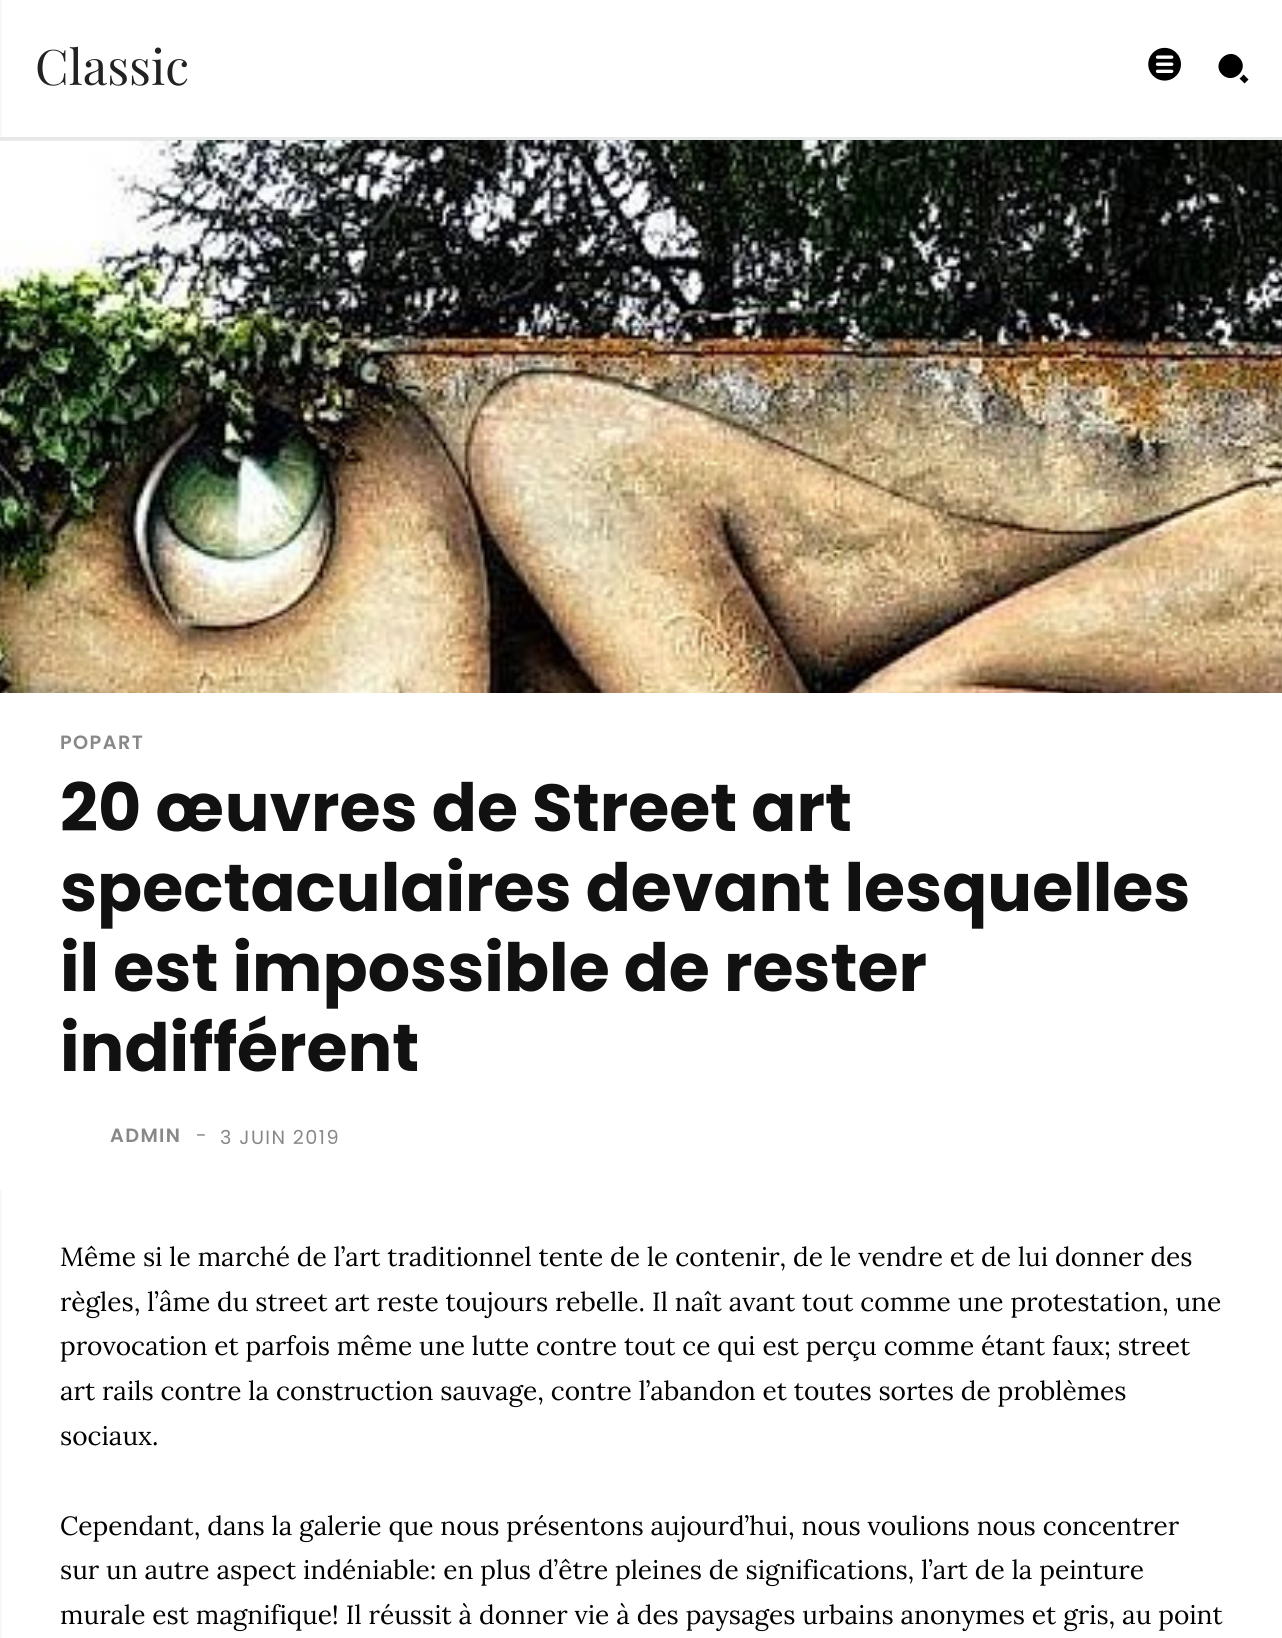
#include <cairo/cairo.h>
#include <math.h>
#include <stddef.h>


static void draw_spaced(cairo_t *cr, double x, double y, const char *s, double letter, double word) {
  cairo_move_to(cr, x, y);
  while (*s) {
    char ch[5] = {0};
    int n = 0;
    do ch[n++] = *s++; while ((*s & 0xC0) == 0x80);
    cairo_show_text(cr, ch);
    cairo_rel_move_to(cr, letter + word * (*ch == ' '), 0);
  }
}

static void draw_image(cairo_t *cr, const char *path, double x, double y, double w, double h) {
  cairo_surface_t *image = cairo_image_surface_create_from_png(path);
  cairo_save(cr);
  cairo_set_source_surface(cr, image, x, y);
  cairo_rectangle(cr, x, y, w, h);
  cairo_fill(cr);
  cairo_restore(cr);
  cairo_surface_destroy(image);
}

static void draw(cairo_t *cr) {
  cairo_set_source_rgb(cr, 247 / 255.0, 248 / 255.0, 248 / 255.0);
  cairo_paint(cr);
  draw_image(cr, "images/2.png", 0, 140, 1282, 553);
  cairo_set_source_rgba(cr, 31 / 255.0, 33 / 255.0, 35 / 255.0, 0.08);
  cairo_rectangle(cr, 0, 137, 1282, 4);
  cairo_fill(cr);
  cairo_set_source_rgb(cr, 1, 1, 1);
  cairo_rectangle(cr, 2, 0, 1280, 137);
  cairo_fill(cr);
  draw_image(cr, "images/1.png", 1148, 47, 33, 34);
  cairo_set_source_rgb(cr, 0, 0, 0);
  cairo_new_path(cr);
  cairo_move_to(cr, 1243.5, 74.5);
  cairo_curve_to(cr, 1242.5, 76, 1241, 77.5, 1239.5, 78.5);
  cairo_line_to(cr, 1244.5, 83.5);
  cairo_line_to(cr, 1248.5, 79.5);
  cairo_close_path(cr);
  cairo_move_to(cr, 1239, 57.5);
  cairo_curve_to(cr, 1250.5, 68.5, 1233.5, 85.5, 1222, 74.5);
  cairo_curve_to(cr, 1211, 63.5, 1228, 46.5, 1239, 57.5);
  cairo_close_path(cr);
  cairo_fill(cr);
  cairo_set_source_rgb(cr, 1, 1, 1);
  cairo_rectangle(cr, 0, 693, 1282, 497);
  cairo_fill(cr);
  cairo_rectangle(cr, 2, 1190, 1280, 448);
  cairo_fill(cr);
  cairo_select_font_face(cr, "Playfair Display", CAIRO_FONT_SLANT_NORMAL, CAIRO_FONT_WEIGHT_NORMAL);
  cairo_set_font_size(cr, 49);
  cairo_set_source_rgb(cr, 34 / 255.0, 34 / 255.0, 34 / 255.0);
  cairo_move_to(cr, 35, 85);
  cairo_show_text(cr, "Classic");
  cairo_select_font_face(cr, "Poppins SemiBold", CAIRO_FONT_SLANT_NORMAL, CAIRO_FONT_WEIGHT_NORMAL);
  cairo_set_font_size(cr, 19.25);
  cairo_set_source_rgb(cr, 136 / 255.0, 136 / 255.0, 136 / 255.0);
  draw_spaced(cr, 60, 749, "POPART", 1.4, 0);
  cairo_select_font_face(cr, "Poppins", CAIRO_FONT_SLANT_NORMAL, CAIRO_FONT_WEIGHT_BOLD);
  cairo_set_font_size(cr, 66.5);
  cairo_set_source_rgb(cr, 17 / 255.0, 17 / 255.0, 17 / 255.0);
  cairo_move_to(cr, 60, 831);
  cairo_show_text(cr, "20 œuvres de Street art");
  cairo_move_to(cr, 60, 911);
  cairo_show_text(cr, "spectaculaires devant lesquelles");
  cairo_move_to(cr, 60, 991);
  cairo_show_text(cr, "il est impossible de rester");
  cairo_move_to(cr, 60, 1071);
  cairo_show_text(cr, "indifférent");
  cairo_select_font_face(cr, "Poppins SemiBold", CAIRO_FONT_SLANT_NORMAL, CAIRO_FONT_WEIGHT_NORMAL);
  cairo_set_font_size(cr, 19.25);
  cairo_set_source_rgb(cr, 136 / 255.0, 136 / 255.0, 136 / 255.0);
  draw_spaced(cr, 110, 1142, "ADMIN", 1.4, 0);
  cairo_select_font_face(cr, "Poppins", CAIRO_FONT_SLANT_NORMAL, CAIRO_FONT_WEIGHT_NORMAL);
  draw_spaced(cr, 196, 1142, "-", 1.4, 0);
  draw_spaced(cr, 220, 1144, "3 JUIN 2019", 1.4, 0);
  cairo_select_font_face(cr, "Lora", CAIRO_FONT_SLANT_NORMAL, CAIRO_FONT_WEIGHT_NORMAL);
  cairo_set_font_size(cr, 26.25);
  cairo_set_source_rgb(cr, 0, 0, 0);
  cairo_move_to(cr, 60, 1266);
  cairo_show_text(cr, "Même si le marché de l’art traditionnel tente de le contenir, de le vendre et de lui donner des");
  cairo_move_to(cr, 60, 1311);
  cairo_show_text(cr, "règles, l’âme du street art reste toujours rebelle. Il naît avant tout comme une protestation, une");
  cairo_move_to(cr, 60, 1355);
  cairo_show_text(cr, "provocation et parfois même une lutte contre tout ce qui est perçu comme étant faux; street");
  cairo_move_to(cr, 60, 1400);
  cairo_show_text(cr, "art rails contre la construction sauvage, contre l’abandon et toutes sortes de problèmes");
  cairo_move_to(cr, 60, 1445);
  cairo_show_text(cr, "sociaux.");
  cairo_move_to(cr, 60, 1535);
  cairo_show_text(cr, "Cependant, dans la galerie que nous présentons aujourd’hui, nous voulions nous concentrer");
  cairo_move_to(cr, 60, 1579);
  cairo_show_text(cr, "sur un autre aspect indéniable: en plus d’être pleines de significations, l’art de la peinture");
  cairo_move_to(cr, 60, 1624);
  cairo_show_text(cr, "murale est magnifique! Il réussit à donner vie à des paysages urbains anonymes et gris, au point");
}

int main(void) {
  cairo_surface_t *surface = cairo_image_surface_create(CAIRO_FORMAT_RGB24, 1282, 1638);
  cairo_t *cr = cairo_create(surface);
  cairo_font_options_t *options = cairo_font_options_create();
  cairo_font_options_set_hint_metrics(options, CAIRO_HINT_METRICS_OFF);
  cairo_font_options_set_hint_style(options, CAIRO_HINT_STYLE_NONE);
  cairo_set_font_options(cr, options);
  cairo_set_miter_limit(cr, 4);
  draw(cr);
  cairo_surface_write_to_png(surface, "out.png");
  cairo_font_options_destroy(options);
  cairo_destroy(cr);
  cairo_surface_destroy(surface);
  return 0;
}
